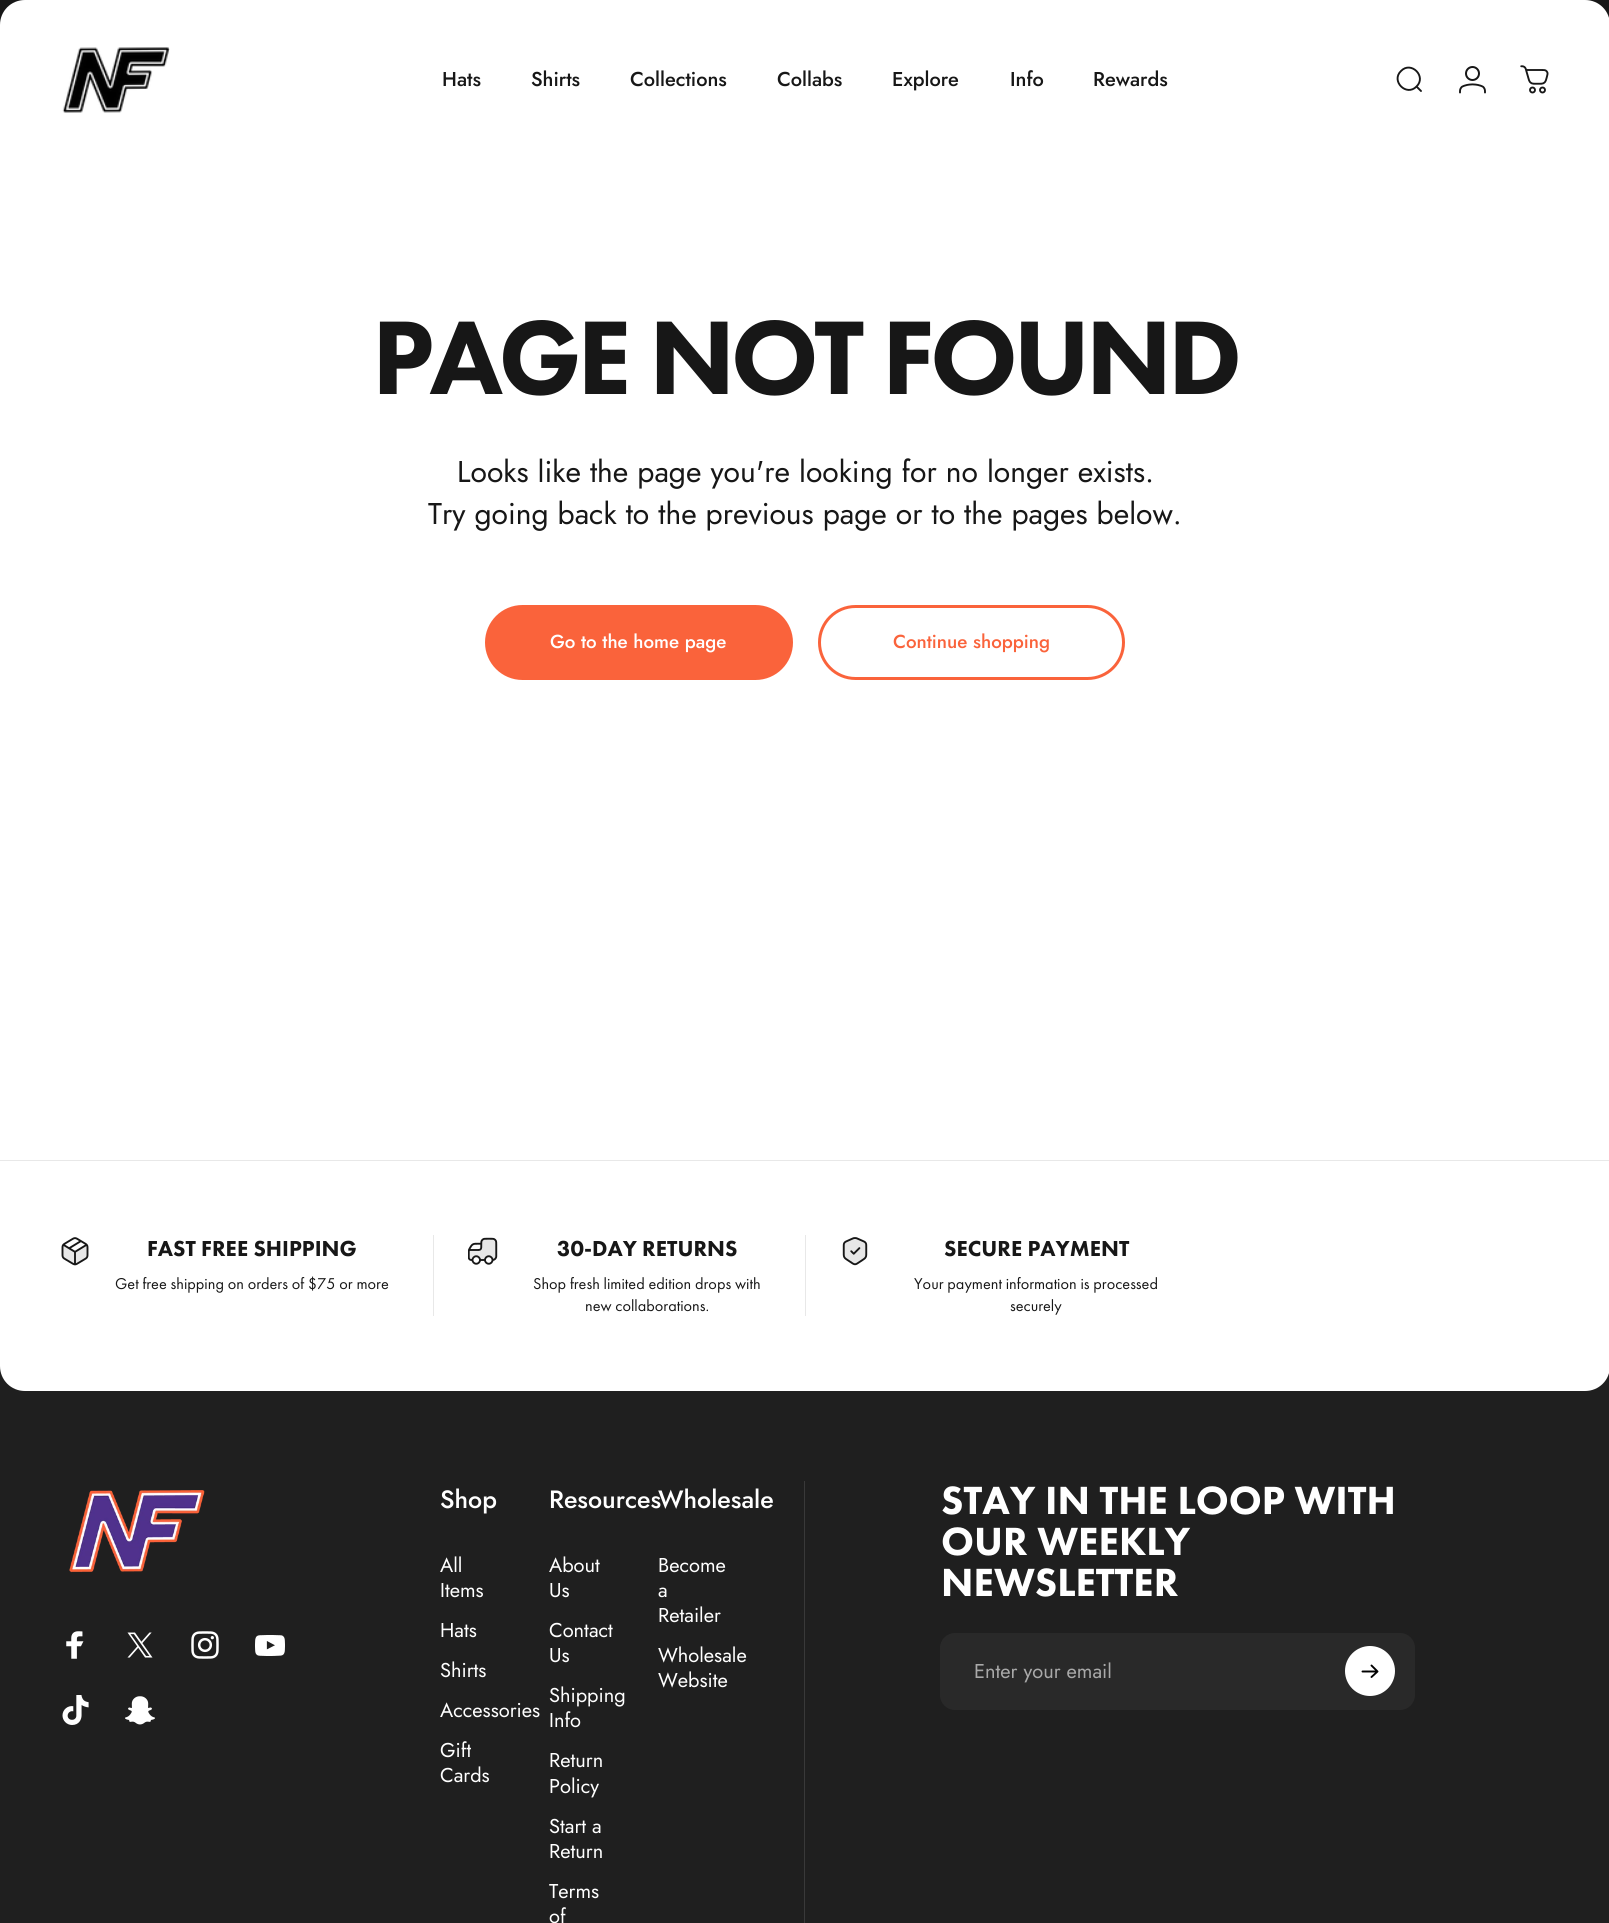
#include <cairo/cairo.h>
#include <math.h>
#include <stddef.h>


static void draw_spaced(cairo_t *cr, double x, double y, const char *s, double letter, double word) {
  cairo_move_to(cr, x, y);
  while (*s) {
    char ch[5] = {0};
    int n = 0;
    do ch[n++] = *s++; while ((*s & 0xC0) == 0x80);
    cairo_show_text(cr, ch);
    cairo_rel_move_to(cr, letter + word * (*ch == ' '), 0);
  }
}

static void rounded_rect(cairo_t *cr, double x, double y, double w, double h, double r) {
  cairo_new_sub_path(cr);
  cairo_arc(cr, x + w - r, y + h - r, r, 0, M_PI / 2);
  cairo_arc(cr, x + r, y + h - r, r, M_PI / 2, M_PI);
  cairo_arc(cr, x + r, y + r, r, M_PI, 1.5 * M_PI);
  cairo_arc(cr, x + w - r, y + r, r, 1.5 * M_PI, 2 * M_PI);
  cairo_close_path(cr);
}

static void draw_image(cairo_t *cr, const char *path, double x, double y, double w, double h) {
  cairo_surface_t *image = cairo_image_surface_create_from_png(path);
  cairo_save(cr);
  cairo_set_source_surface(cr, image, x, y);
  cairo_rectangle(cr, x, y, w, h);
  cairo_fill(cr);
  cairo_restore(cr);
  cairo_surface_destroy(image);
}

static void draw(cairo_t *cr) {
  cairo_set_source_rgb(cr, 1, 1, 1);
  cairo_paint(cr);
  cairo_set_source_rgb(cr, 23 / 255.0, 23 / 255.0, 23 / 255.0);
  cairo_rectangle(cr, 0, 0, 1609, 25);
  cairo_fill(cr);
  cairo_set_source_rgb(cr, 1, 1, 1);
  cairo_new_path(cr);
  cairo_move_to(cr, 25, 0);
  cairo_line_to(cr, 1585, 0);
  cairo_curve_to(cr, 1599, 0, 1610, 11, 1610, 25);
  cairo_line_to(cr, 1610, 156);
  cairo_line_to(cr, 0, 156);
  cairo_line_to(cr, 0, 25);
  cairo_curve_to(cr, 0, 11, 11, 0, 25, 0);
  cairo_close_path(cr);
  cairo_fill(cr);
  draw_image(cr, "images/1.png", 62, 47, 108, 66);
  cairo_new_path(cr);
  cairo_move_to(cr, 1421, 91);
  cairo_line_to(cr, 1416.5, 86.5);
  cairo_move_to(cr, 1416.5, 86.5);
  cairo_curve_to(cr, 1427, 76.5, 1411, 60.5, 1401, 71);
  cairo_curve_to(cr, 1390.5, 81, 1406.5, 97, 1416.5, 86.5);
  cairo_close_path(cr);
  cairo_set_source_rgb(cr, 23 / 255.0, 23 / 255.0, 23 / 255.0);
  cairo_set_line_width(cr, 1.9);
  cairo_set_line_cap(cr, CAIRO_LINE_CAP_ROUND);
  cairo_stroke(cr);
  draw_image(cr, "images/2.png", 1459, 66, 27, 28);
  draw_image(cr, "images/3.png", 1520, 65, 29, 29);
  cairo_set_source_rgb(cr, 250 / 255.0, 99 / 255.0, 59 / 255.0);
  rounded_rect(cr, 486.5, 606.5, 305, 72, 36);
  cairo_fill_preserve(cr);
  cairo_set_line_width(cr, 3);
  cairo_set_line_cap(cr, CAIRO_LINE_CAP_BUTT);
  cairo_stroke(cr);
  rounded_rect(cr, 819.5, 606.5, 304, 72, 36);
  cairo_stroke(cr);
  cairo_set_source_rgb(cr, 31 / 255.0, 31 / 255.0, 31 / 255.0);
  cairo_rectangle(cr, 0, 1366, 1609, 557);
  cairo_fill(cr);
  cairo_set_source_rgb(cr, 1, 1, 1);
  cairo_new_path(cr);
  cairo_move_to(cr, 0, 1160);
  cairo_line_to(cr, 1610, 1160);
  cairo_line_to(cr, 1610, 1366);
  cairo_curve_to(cr, 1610, 1380, 1599, 1391, 1585, 1391);
  cairo_line_to(cr, 25, 1391);
  cairo_curve_to(cr, 11, 1391, 0, 1380, 0, 1366);
  cairo_close_path(cr);
  cairo_fill(cr);
  cairo_set_source_rgb(cr, 232 / 255.0, 232 / 255.0, 232 / 255.0);
  cairo_rectangle(cr, 0, 1160, 1609, 1);
  cairo_fill(cr);
  draw_image(cr, "images/4.png", 61, 1237, 28, 29);
  cairo_rectangle(cr, 433, 1235, 1, 81);
  cairo_fill(cr);
  draw_image(cr, "images/5.png", 468, 1237, 30, 28);
  cairo_rectangle(cr, 805, 1235, 1, 81);
  cairo_fill(cr);
  draw_image(cr, "images/6.png", 842, 1237, 26, 29);
  cairo_set_source_rgb(cr, 57 / 255.0, 57 / 255.0, 57 / 255.0);
  cairo_rectangle(cr, 804, 1481, 1, 442);
  cairo_fill(cr);
  draw_image(cr, "images/7.png", 69, 1490, 136, 83);
  draw_image(cr, "images/8.png", 66, 1631, 18, 28);
  draw_image(cr, "images/9.png", 127, 1632, 26, 26);
  draw_image(cr, "images/10.png", 191, 1631, 28, 28);
  draw_image(cr, "images/11.png", 255, 1635, 30, 21);
  draw_image(cr, "images/12.png", 62, 1695, 27, 30);
  draw_image(cr, "images/13.png", 125, 1696, 30, 29);
  cairo_set_source_rgb(cr, 41 / 255.0, 41 / 255.0, 41 / 255.0);
  rounded_rect(cr, 940, 1633, 475, 77, 15);
  cairo_fill(cr);
  cairo_set_source_rgb(cr, 1, 1, 1);
  cairo_arc(cr, 1370, 1671, 23.5, 0, 2 * M_PI);
  cairo_fill_preserve(cr);
  cairo_stroke(cr);
  cairo_new_path(cr);
  cairo_move_to(cr, 1362.5, 1671.5);
  cairo_line_to(cr, 1377.5, 1671.5);
  cairo_move_to(cr, 1377.5, 1671.5);
  cairo_line_to(cr, 1371.5, 1665.5);
  cairo_move_to(cr, 1377.5, 1671.5);
  cairo_line_to(cr, 1371.5, 1677);
  cairo_set_source_rgb(cr, 0, 0, 0);
  cairo_set_line_width(cr, 1.9);
  cairo_set_line_cap(cr, CAIRO_LINE_CAP_ROUND);
  cairo_set_line_join(cr, CAIRO_LINE_JOIN_ROUND);
  cairo_stroke(cr);
  cairo_select_font_face(cr, "Jost Medium", CAIRO_FONT_SLANT_NORMAL, CAIRO_FONT_WEIGHT_NORMAL);
  cairo_set_font_size(cr, 20);
  cairo_set_source_rgb(cr, 23 / 255.0, 23 / 255.0, 23 / 255.0);
  cairo_move_to(cr, 442, 86);
  cairo_show_text(cr, "Hats");
  cairo_move_to(cr, 531, 86);
  cairo_show_text(cr, "Shirts");
  cairo_move_to(cr, 630, 86);
  cairo_show_text(cr, "Collections");
  cairo_move_to(cr, 777, 86);
  cairo_show_text(cr, "Collabs");
  cairo_move_to(cr, 892, 86);
  cairo_show_text(cr, "Explore");
  cairo_move_to(cr, 1010, 86);
  cairo_show_text(cr, "Info");
  cairo_move_to(cr, 1093, 86);
  cairo_show_text(cr, "Rewards");
  cairo_select_font_face(cr, "Futura PT Black", CAIRO_FONT_SLANT_NORMAL, CAIRO_FONT_WEIGHT_NORMAL);
  cairo_set_font_size(cr, 108.5);
  draw_spaced(cr, 372, 394, "PAGE", -4.5, 0);
  draw_spaced(cr, 649, 394, "NOT", -4.5, 0);
  draw_spaced(cr, 882, 394, "FOUND", -4.5, 0);
  cairo_select_font_face(cr, "Jost", CAIRO_FONT_SLANT_NORMAL, CAIRO_FONT_WEIGHT_NORMAL);
  cairo_set_font_size(cr, 30);
  cairo_move_to(cr, 457, 482);
  cairo_show_text(cr, "Looks like the page you're looking for no longer exists.");
  cairo_move_to(cr, 428, 524);
  cairo_show_text(cr, "Try going back to the previous page or to the pages below.");
  cairo_select_font_face(cr, "Jost Medium", CAIRO_FONT_SLANT_NORMAL, CAIRO_FONT_WEIGHT_NORMAL);
  cairo_set_font_size(cr, 18.75);
  cairo_set_source_rgb(cr, 1, 1, 1);
  cairo_move_to(cr, 550, 648);
  cairo_show_text(cr, "Go to the home page");
  cairo_set_source_rgb(cr, 250 / 255.0, 99 / 255.0, 59 / 255.0);
  cairo_move_to(cr, 893, 648);
  cairo_show_text(cr, "Continue shopping");
  cairo_select_font_face(cr, "Futura PT Black", CAIRO_FONT_SLANT_NORMAL, CAIRO_FONT_WEIGHT_NORMAL);
  cairo_set_font_size(cr, 22.5);
  cairo_set_source_rgb(cr, 23 / 255.0, 23 / 255.0, 23 / 255.0);
  cairo_move_to(cr, 147, 1256);
  cairo_show_text(cr, "FAST FREE SHIPPING");
  cairo_select_font_face(cr, "Futura PT", CAIRO_FONT_SLANT_NORMAL, CAIRO_FONT_WEIGHT_NORMAL);
  cairo_set_font_size(cr, 16.25);
  cairo_move_to(cr, 115, 1289);
  cairo_show_text(cr, "Get free shipping on orders of $75 or more");
  cairo_select_font_face(cr, "Futura PT Black", CAIRO_FONT_SLANT_NORMAL, CAIRO_FONT_WEIGHT_NORMAL);
  cairo_set_font_size(cr, 22.5);
  cairo_move_to(cr, 557, 1256);
  cairo_show_text(cr, "30-DAY RETURNS");
  cairo_select_font_face(cr, "Futura PT", CAIRO_FONT_SLANT_NORMAL, CAIRO_FONT_WEIGHT_NORMAL);
  cairo_set_font_size(cr, 16.25);
  cairo_move_to(cr, 533, 1289);
  cairo_show_text(cr, "Shop fresh limited edition drops with");
  cairo_move_to(cr, 585, 1311);
  cairo_show_text(cr, "new collaborations.");
  cairo_select_font_face(cr, "Futura PT Black", CAIRO_FONT_SLANT_NORMAL, CAIRO_FONT_WEIGHT_NORMAL);
  cairo_set_font_size(cr, 22.5);
  cairo_move_to(cr, 944, 1256);
  cairo_show_text(cr, "SECURE PAYMENT");
  cairo_select_font_face(cr, "Futura PT", CAIRO_FONT_SLANT_NORMAL, CAIRO_FONT_WEIGHT_NORMAL);
  cairo_set_font_size(cr, 16.25);
  cairo_move_to(cr, 914, 1289);
  cairo_show_text(cr, "Your payment information is processed");
  cairo_move_to(cr, 1010, 1311);
  cairo_show_text(cr, "securely");
  cairo_select_font_face(cr, "Jost Medium", CAIRO_FONT_SLANT_NORMAL, CAIRO_FONT_WEIGHT_NORMAL);
  cairo_set_font_size(cr, 25);
  cairo_set_source_rgb(cr, 1, 1, 1);
  cairo_move_to(cr, 440, 1508);
  cairo_show_text(cr, "Shop");
  cairo_select_font_face(cr, "Jost", CAIRO_FONT_SLANT_NORMAL, CAIRO_FONT_WEIGHT_NORMAL);
  cairo_set_font_size(cr, 20);
  cairo_move_to(cr, 440, 1572);
  cairo_show_text(cr, "All");
  cairo_move_to(cr, 440, 1597);
  cairo_show_text(cr, "Items");
  cairo_move_to(cr, 440, 1637);
  cairo_show_text(cr, "Hats");
  cairo_move_to(cr, 440, 1677);
  cairo_show_text(cr, "Shirts");
  cairo_move_to(cr, 440, 1717);
  cairo_show_text(cr, "Accessories");
  cairo_move_to(cr, 440, 1757);
  cairo_show_text(cr, "Gift");
  cairo_move_to(cr, 440, 1782);
  cairo_show_text(cr, "Cards");
  cairo_select_font_face(cr, "Jost Medium", CAIRO_FONT_SLANT_NORMAL, CAIRO_FONT_WEIGHT_NORMAL);
  cairo_set_font_size(cr, 25);
  cairo_move_to(cr, 549, 1508);
  cairo_show_text(cr, "Resources");
  cairo_select_font_face(cr, "Jost", CAIRO_FONT_SLANT_NORMAL, CAIRO_FONT_WEIGHT_NORMAL);
  cairo_set_font_size(cr, 20);
  cairo_move_to(cr, 549, 1572);
  cairo_show_text(cr, "About");
  cairo_move_to(cr, 549, 1597);
  cairo_show_text(cr, "Us");
  cairo_move_to(cr, 549, 1637);
  cairo_show_text(cr, "Contact");
  cairo_move_to(cr, 549, 1662);
  cairo_show_text(cr, "Us");
  cairo_move_to(cr, 549, 1702);
  cairo_show_text(cr, "Shipping");
  cairo_move_to(cr, 549, 1727);
  cairo_show_text(cr, "Info");
  cairo_move_to(cr, 549, 1767);
  cairo_show_text(cr, "Return");
  cairo_move_to(cr, 549, 1793);
  cairo_show_text(cr, "Policy");
  cairo_move_to(cr, 549, 1833);
  cairo_show_text(cr, "Start a");
  cairo_move_to(cr, 549, 1858);
  cairo_show_text(cr, "Return");
  cairo_move_to(cr, 549, 1898);
  cairo_show_text(cr, "Terms");
  cairo_move_to(cr, 549, 1923);
  cairo_show_text(cr, "of");
  cairo_select_font_face(cr, "Jost Medium", CAIRO_FONT_SLANT_NORMAL, CAIRO_FONT_WEIGHT_NORMAL);
  cairo_set_font_size(cr, 25);
  cairo_move_to(cr, 658, 1508);
  cairo_show_text(cr, "Wholesale");
  cairo_select_font_face(cr, "Jost", CAIRO_FONT_SLANT_NORMAL, CAIRO_FONT_WEIGHT_NORMAL);
  cairo_set_font_size(cr, 20);
  cairo_move_to(cr, 658, 1572);
  cairo_show_text(cr, "Become");
  cairo_move_to(cr, 658, 1597);
  cairo_show_text(cr, "a");
  cairo_move_to(cr, 658, 1622);
  cairo_show_text(cr, "Retailer");
  cairo_move_to(cr, 658, 1662);
  cairo_show_text(cr, "Wholesale");
  cairo_move_to(cr, 658, 1687);
  cairo_show_text(cr, "Website");
  cairo_select_font_face(cr, "Futura PT Black", CAIRO_FONT_SLANT_NORMAL, CAIRO_FONT_WEIGHT_NORMAL);
  cairo_set_font_size(cr, 40.75);
  cairo_move_to(cr, 941, 1514);
  cairo_show_text(cr, "STAY IN THE LOOP WITH");
  cairo_move_to(cr, 941, 1555);
  cairo_show_text(cr, "OUR WEEKLY");
  cairo_move_to(cr, 941, 1596);
  cairo_show_text(cr, "NEWSLETTER");
  cairo_select_font_face(cr, "Jost", CAIRO_FONT_SLANT_NORMAL, CAIRO_FONT_WEIGHT_NORMAL);
  cairo_set_font_size(cr, 20);
  cairo_set_source_rgb(cr, 169 / 255.0, 169 / 255.0, 169 / 255.0);
  cairo_move_to(cr, 974, 1678);
  cairo_show_text(cr, "Enter your email");
}

int main(void) {
  cairo_surface_t *surface = cairo_image_surface_create(CAIRO_FORMAT_RGB24, 1609, 1923);
  cairo_t *cr = cairo_create(surface);
  cairo_font_options_t *options = cairo_font_options_create();
  cairo_font_options_set_hint_metrics(options, CAIRO_HINT_METRICS_OFF);
  cairo_font_options_set_hint_style(options, CAIRO_HINT_STYLE_NONE);
  cairo_set_font_options(cr, options);
  cairo_set_miter_limit(cr, 4);
  draw(cr);
  cairo_surface_write_to_png(surface, "out.png");
  cairo_font_options_destroy(options);
  cairo_destroy(cr);
  cairo_surface_destroy(surface);
  return 0;
}
